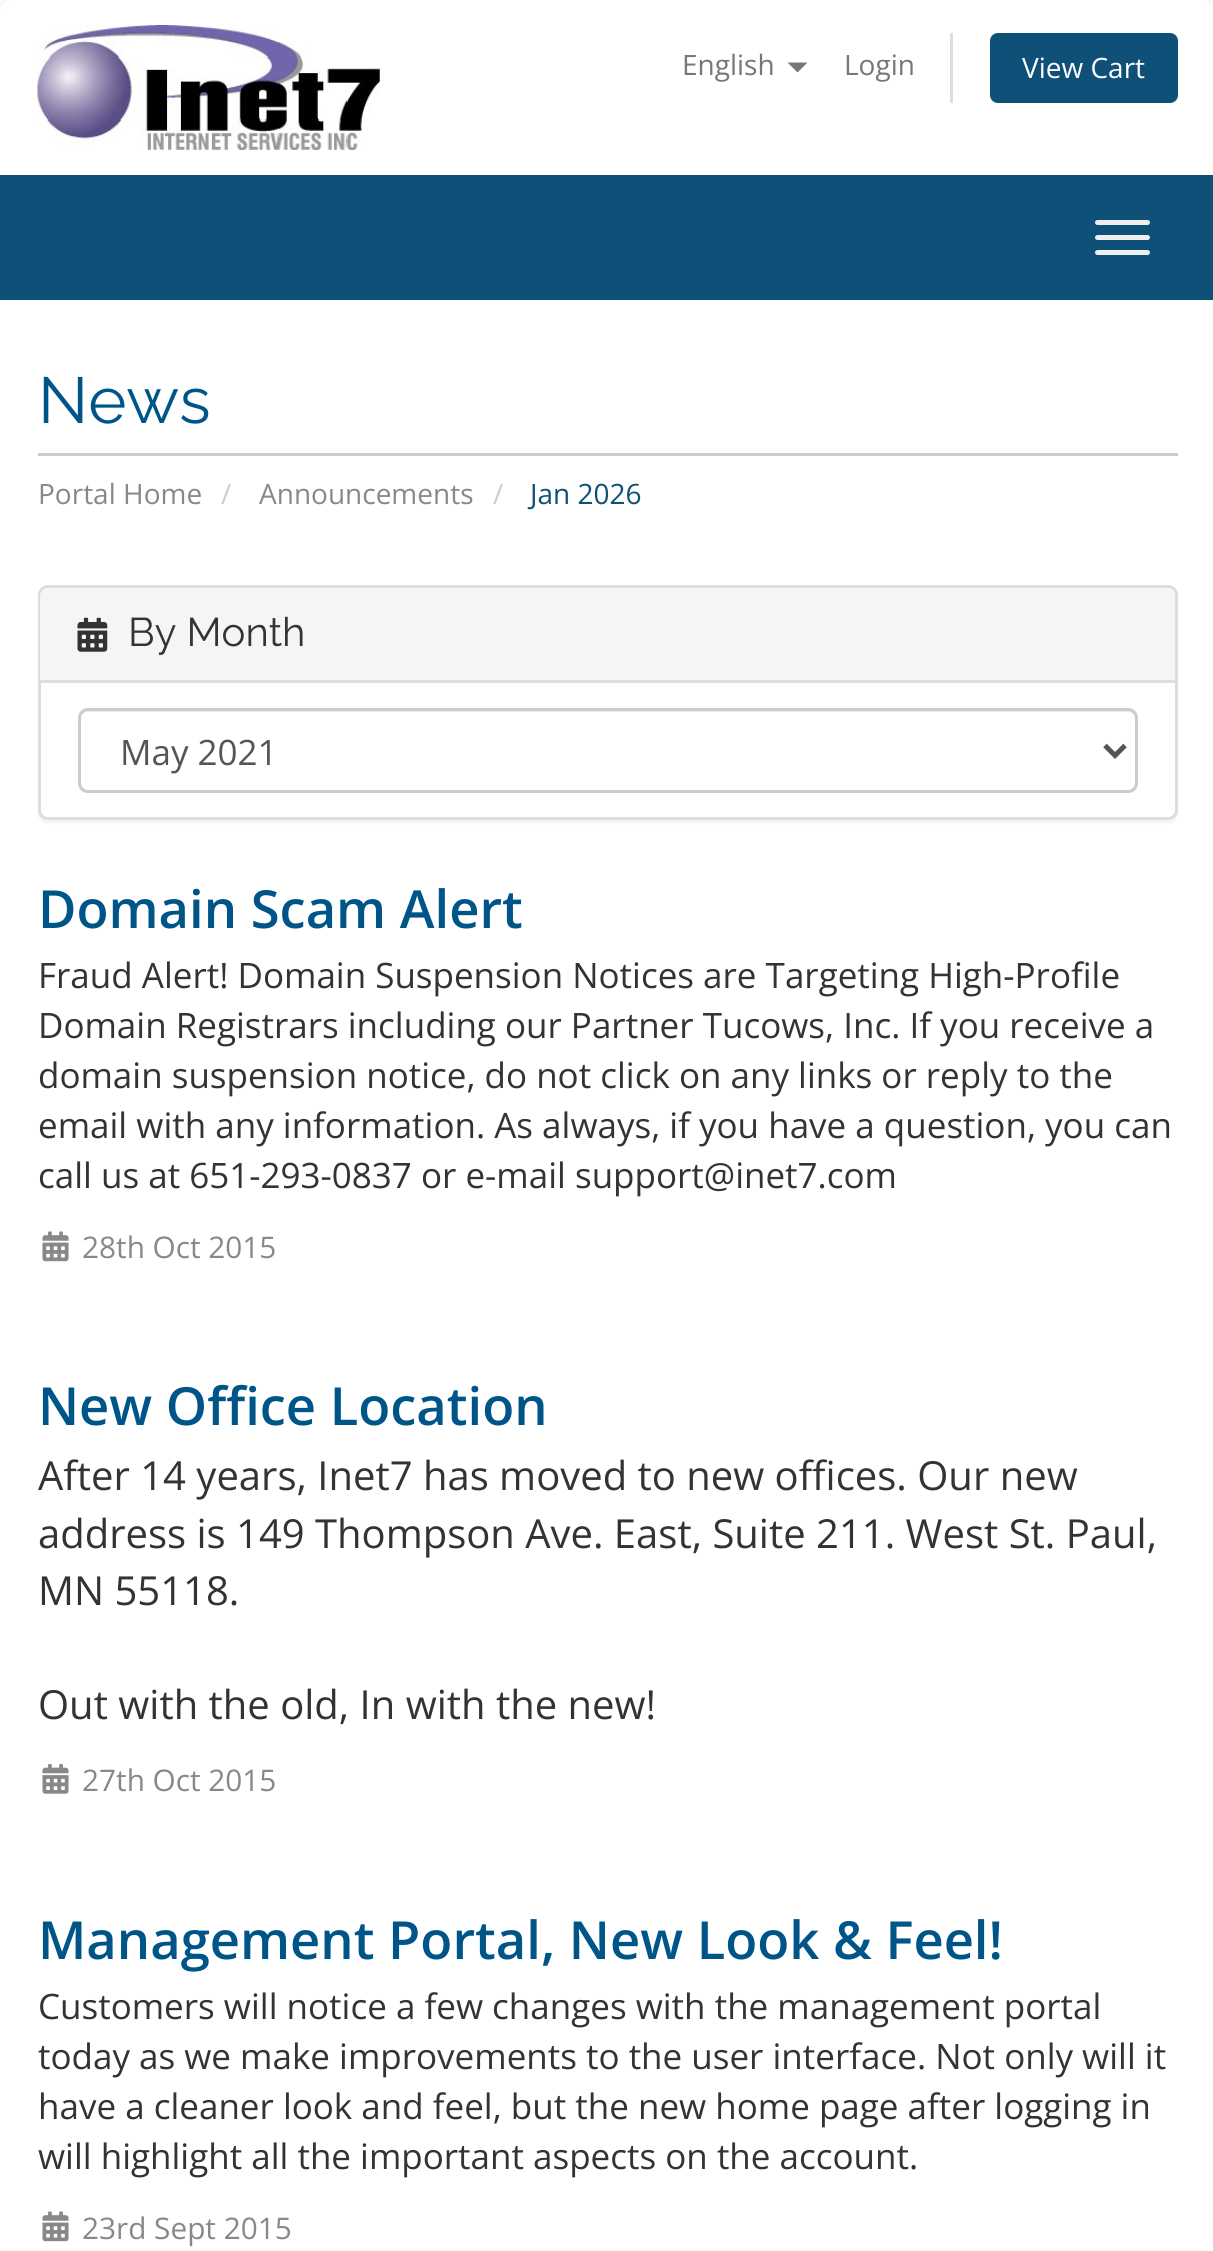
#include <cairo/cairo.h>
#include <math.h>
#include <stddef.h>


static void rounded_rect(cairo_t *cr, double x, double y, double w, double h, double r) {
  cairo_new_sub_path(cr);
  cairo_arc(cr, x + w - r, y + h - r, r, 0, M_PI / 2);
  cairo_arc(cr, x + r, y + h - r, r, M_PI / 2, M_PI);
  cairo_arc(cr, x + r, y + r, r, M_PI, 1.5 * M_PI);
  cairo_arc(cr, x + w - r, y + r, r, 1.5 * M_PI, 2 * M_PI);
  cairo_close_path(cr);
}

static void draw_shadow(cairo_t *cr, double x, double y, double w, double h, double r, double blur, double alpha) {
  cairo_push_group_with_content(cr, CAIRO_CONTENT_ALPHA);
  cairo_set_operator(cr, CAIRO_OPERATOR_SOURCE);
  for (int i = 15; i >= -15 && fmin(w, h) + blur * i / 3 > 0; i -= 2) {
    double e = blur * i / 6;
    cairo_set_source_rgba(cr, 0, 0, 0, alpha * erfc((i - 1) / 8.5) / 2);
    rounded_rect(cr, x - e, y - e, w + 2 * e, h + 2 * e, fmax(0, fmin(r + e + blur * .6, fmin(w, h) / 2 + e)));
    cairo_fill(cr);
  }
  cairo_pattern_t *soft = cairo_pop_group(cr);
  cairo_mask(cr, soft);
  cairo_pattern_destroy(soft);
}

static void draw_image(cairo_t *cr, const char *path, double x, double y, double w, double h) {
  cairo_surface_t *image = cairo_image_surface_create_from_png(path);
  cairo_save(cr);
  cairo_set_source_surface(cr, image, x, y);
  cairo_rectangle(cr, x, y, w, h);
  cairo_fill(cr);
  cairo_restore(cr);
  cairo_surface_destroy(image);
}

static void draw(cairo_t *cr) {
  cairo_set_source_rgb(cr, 248 / 255.0, 248 / 255.0, 248 / 255.0);
  cairo_paint(cr);
  cairo_set_source_rgb(cr, 1, 1, 1);
  cairo_new_path(cr);
  cairo_move_to(cr, 13, 0);
  cairo_line_to(cr, 1202, 0);
  cairo_curve_to(cr, 1209, 0, 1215, 6, 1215, 13);
  cairo_line_to(cr, 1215, 175);
  cairo_line_to(cr, 0, 175);
  cairo_line_to(cr, 0, 13);
  cairo_curve_to(cr, 0, 6, 6, 0, 13, 0);
  cairo_close_path(cr);
  cairo_fill(cr);
  draw_image(cr, "images/1.png", 37, 25, 343, 125);
  cairo_set_source_rgb(cr, 119 / 255.0, 119 / 255.0, 119 / 255.0);
  cairo_new_path(cr);
  cairo_move_to(cr, 787.5, 62.5);
  cairo_line_to(cr, 807.5, 62.5);
  cairo_line_to(cr, 797.5, 72.5);
  cairo_close_path(cr);
  cairo_fill(cr);
  cairo_set_source_rgb(cr, 221 / 255.0, 221 / 255.0, 221 / 255.0);
  cairo_rectangle(cr, 950, 33, 3, 70);
  cairo_fill(cr);
  cairo_set_source_rgb(cr, 14 / 255.0, 80 / 255.0, 119 / 255.0);
  rounded_rect(cr, 990, 33, 188, 70, 8);
  cairo_fill(cr);
  cairo_rectangle(cr, 0, 175, 1213, 125);
  cairo_fill(cr);
  cairo_set_source_rgb(cr, 238 / 255.0, 238 / 255.0, 238 / 255.0);
  rounded_rect(cr, 1095, 220, 55, 5, 2.5);
  cairo_fill(cr);
  rounded_rect(cr, 1095, 235, 55, 5, 2.5);
  cairo_fill(cr);
  rounded_rect(cr, 1095, 250, 55, 5, 2.5);
  cairo_fill(cr);
  cairo_set_source_rgb(cr, 1, 1, 1);
  cairo_rectangle(cr, 0, 300, 1213, 1951);
  cairo_fill(cr);
  cairo_set_source_rgb(cr, 204 / 255.0, 204 / 255.0, 204 / 255.0);
  cairo_rectangle(cr, 38, 453, 1140, 3);
  cairo_fill(cr);
  cairo_set_source_rgb(cr, 0, 0, 0);
  draw_shadow(cr, 38, 588, 1140, 235, 10, 1, 0.05);
  cairo_set_source_rgb(cr, 1, 1, 1);
  rounded_rect(cr, 39.5, 586.5, 1137, 232, 8.5);
  cairo_fill_preserve(cr);
  cairo_set_source_rgb(cr, 221 / 255.0, 221 / 255.0, 221 / 255.0);
  cairo_set_line_width(cr, 3);
  cairo_stroke(cr);
  cairo_set_source_rgb(cr, 245 / 255.0, 245 / 255.0, 245 / 255.0);
  cairo_new_path(cr);
  cairo_move_to(cr, 48, 588);
  cairo_line_to(cr, 1167, 588);
  cairo_curve_to(cr, 1171.5, 588, 1175, 591.5, 1175, 596);
  cairo_line_to(cr, 1175, 683);
  cairo_line_to(cr, 40, 683);
  cairo_line_to(cr, 40, 596);
  cairo_curve_to(cr, 40, 591.5, 43.5, 588, 48, 588);
  cairo_close_path(cr);
  cairo_fill(cr);
  cairo_set_source_rgb(cr, 221 / 255.0, 221 / 255.0, 221 / 255.0);
  cairo_rectangle(cr, 40, 680, 1135, 3);
  cairo_fill(cr);
  draw_image(cr, "images/2.png", 77, 617, 31, 35);
  cairo_set_source_rgb(cr, 236 / 255.0, 236 / 255.0, 236 / 255.0);
  cairo_new_path(cr);
  cairo_move_to(cr, 88, 712);
  cairo_line_to(cr, 1128, 712);
  cairo_curve_to(cr, 1132, 712, 1135, 716, 1135, 720);
  cairo_line_to(cr, 1135, 718);
  cairo_curve_to(cr, 1135, 714, 1131, 710, 1127, 710);
  cairo_line_to(cr, 88, 710);
  cairo_curve_to(cr, 84, 710, 80, 714, 80, 718);
  cairo_line_to(cr, 80, 720);
  cairo_curve_to(cr, 80, 716, 83, 712, 88, 712);
  cairo_close_path(cr);
  cairo_fill(cr);
  rounded_rect(cr, 79.5, 709.5, 1057, 82, 8.5);
  cairo_set_source_rgb(cr, 204 / 255.0, 204 / 255.0, 204 / 255.0);
  cairo_stroke(cr);
  cairo_new_path(cr);
  cairo_move_to(cr, 1105, 745.5);
  cairo_line_to(cr, 1115, 755.5);
  cairo_line_to(cr, 1125, 745.5);
  cairo_set_source_rgb(cr, 85 / 255.0, 85 / 255.0, 85 / 255.0);
  cairo_set_line_width(cr, 5);
  cairo_stroke(cr);
  draw_image(cr, "images/3.png", 42, 1231, 27, 31);
  draw_image(cr, "images/4.png", 42, 1764, 27, 30);
  draw_image(cr, "images/3.png", 42, 2211, 27, 31);
  cairo_select_font_face(cr, "Open Sans", CAIRO_FONT_SLANT_NORMAL, CAIRO_FONT_WEIGHT_NORMAL);
  cairo_set_font_size(cr, 28);
  cairo_set_source_rgb(cr, 119 / 255.0, 119 / 255.0, 119 / 255.0);
  cairo_move_to(cr, 682, 75);
  cairo_show_text(cr, "English");
  cairo_move_to(cr, 844, 75);
  cairo_show_text(cr, "Login");
  cairo_set_source_rgb(cr, 1, 1, 1);
  cairo_move_to(cr, 1022, 78);
  cairo_show_text(cr, "View Cart");
  cairo_select_font_face(cr, "Raleway", CAIRO_FONT_SLANT_NORMAL, CAIRO_FONT_WEIGHT_NORMAL);
  cairo_set_font_size(cr, 65);
  cairo_set_source_rgb(cr, 0, 85 / 255.0, 136 / 255.0);
  cairo_move_to(cr, 38, 423);
  cairo_show_text(cr, "News");
  cairo_select_font_face(cr, "Open Sans", CAIRO_FONT_SLANT_NORMAL, CAIRO_FONT_WEIGHT_NORMAL);
  cairo_set_font_size(cr, 28);
  cairo_set_source_rgb(cr, 136 / 255.0, 136 / 255.0, 136 / 255.0);
  cairo_move_to(cr, 38, 504);
  cairo_show_text(cr, "Portal Home");
  cairo_set_source_rgb(cr, 204 / 255.0, 204 / 255.0, 204 / 255.0);
  cairo_move_to(cr, 221, 504);
  cairo_show_text(cr, "/");
  cairo_set_source_rgb(cr, 136 / 255.0, 136 / 255.0, 136 / 255.0);
  cairo_move_to(cr, 259, 504);
  cairo_show_text(cr, "Announcements");
  cairo_set_source_rgb(cr, 204 / 255.0, 204 / 255.0, 204 / 255.0);
  cairo_move_to(cr, 493, 504);
  cairo_show_text(cr, "/");
  cairo_set_source_rgb(cr, 14 / 255.0, 80 / 255.0, 119 / 255.0);
  cairo_move_to(cr, 530, 504);
  cairo_show_text(cr, "Jan 2026");
  cairo_select_font_face(cr, "Raleway", CAIRO_FONT_SLANT_NORMAL, CAIRO_FONT_WEIGHT_NORMAL);
  cairo_set_font_size(cr, 40);
  cairo_set_source_rgb(cr, 51 / 255.0, 51 / 255.0, 51 / 255.0);
  cairo_move_to(cr, 128, 646);
  cairo_show_text(cr, "By Month");
  cairo_select_font_face(cr, "Open Sans", CAIRO_FONT_SLANT_NORMAL, CAIRO_FONT_WEIGHT_NORMAL);
  cairo_set_font_size(cr, 35);
  cairo_set_source_rgb(cr, 85 / 255.0, 85 / 255.0, 85 / 255.0);
  cairo_move_to(cr, 120, 765);
  cairo_show_text(cr, "May 2021");
  cairo_select_font_face(cr, "Open Sans SemiBold", CAIRO_FONT_SLANT_NORMAL, CAIRO_FONT_WEIGHT_NORMAL);
  cairo_set_font_size(cr, 52.5);
  cairo_set_source_rgb(cr, 0, 85 / 255.0, 136 / 255.0);
  cairo_move_to(cr, 38, 928);
  cairo_show_text(cr, "Domain Scam Alert");
  cairo_select_font_face(cr, "Open Sans", CAIRO_FONT_SLANT_NORMAL, CAIRO_FONT_WEIGHT_NORMAL);
  cairo_set_font_size(cr, 35);
  cairo_set_source_rgb(cr, 51 / 255.0, 51 / 255.0, 51 / 255.0);
  cairo_move_to(cr, 38, 988);
  cairo_show_text(cr, "Fraud Alert! Domain Suspension Notices are Targeting High-Profile");
  cairo_move_to(cr, 38, 1038);
  cairo_show_text(cr, "Domain Registrars including our Partner Tucows, Inc. If you receive a");
  cairo_move_to(cr, 38, 1088);
  cairo_show_text(cr, "domain suspension notice, do not click on any links or reply to the");
  cairo_move_to(cr, 38, 1138);
  cairo_show_text(cr, "email with any information. As always, if you have a question, you can");
  cairo_move_to(cr, 38, 1188);
  cairo_show_text(cr, "call us at 651-293-0837 or e-mail support@inet7.com");
  cairo_set_font_size(cr, 29.75);
  cairo_set_source_rgb(cr, 136 / 255.0, 136 / 255.0, 136 / 255.0);
  cairo_move_to(cr, 82, 1258);
  cairo_show_text(cr, "28th Oct 2015");
  cairo_select_font_face(cr, "Open Sans SemiBold", CAIRO_FONT_SLANT_NORMAL, CAIRO_FONT_WEIGHT_NORMAL);
  cairo_set_font_size(cr, 52.5);
  cairo_set_source_rgb(cr, 0, 85 / 255.0, 136 / 255.0);
  cairo_move_to(cr, 38, 1425);
  cairo_show_text(cr, "New Office Location");
  cairo_select_font_face(cr, "Open Sans", CAIRO_FONT_SLANT_NORMAL, CAIRO_FONT_WEIGHT_NORMAL);
  cairo_set_font_size(cr, 40);
  cairo_set_source_rgb(cr, 51 / 255.0, 51 / 255.0, 51 / 255.0);
  cairo_move_to(cr, 38, 1490);
  cairo_show_text(cr, "After 14 years, Inet7 has moved to new offices. Our new");
  cairo_move_to(cr, 38, 1548);
  cairo_show_text(cr, "address is 149 Thompson Ave. East, Suite 211. West St. Paul,");
  cairo_move_to(cr, 38, 1605);
  cairo_show_text(cr, "MN 55118.");
  cairo_move_to(cr, 38, 1719);
  cairo_show_text(cr, "Out with the old, In with the new!");
  cairo_set_font_size(cr, 29.75);
  cairo_set_source_rgb(cr, 136 / 255.0, 136 / 255.0, 136 / 255.0);
  cairo_move_to(cr, 82, 1791);
  cairo_show_text(cr, "27th Oct 2015");
  cairo_select_font_face(cr, "Open Sans SemiBold", CAIRO_FONT_SLANT_NORMAL, CAIRO_FONT_WEIGHT_NORMAL);
  cairo_set_font_size(cr, 52.5);
  cairo_set_source_rgb(cr, 0, 85 / 255.0, 136 / 255.0);
  cairo_move_to(cr, 38, 1959);
  cairo_show_text(cr, "Management Portal, New Look & Feel!");
  cairo_select_font_face(cr, "Open Sans", CAIRO_FONT_SLANT_NORMAL, CAIRO_FONT_WEIGHT_NORMAL);
  cairo_set_font_size(cr, 35);
  cairo_set_source_rgb(cr, 51 / 255.0, 51 / 255.0, 51 / 255.0);
  cairo_move_to(cr, 38, 2019);
  cairo_show_text(cr, "Customers will notice a few changes with the management portal");
  cairo_move_to(cr, 38, 2069);
  cairo_show_text(cr, "today as we make improvements to the user interface. Not only will it");
  cairo_move_to(cr, 38, 2119);
  cairo_show_text(cr, "have a cleaner look and feel, but the new home page after logging in");
  cairo_move_to(cr, 38, 2169);
  cairo_show_text(cr, "will highlight all the important aspects on the account.");
  cairo_set_font_size(cr, 29.75);
  cairo_set_source_rgb(cr, 136 / 255.0, 136 / 255.0, 136 / 255.0);
  cairo_move_to(cr, 82, 2239);
  cairo_show_text(cr, "23rd Sept 2015");
}

int main(void) {
  cairo_surface_t *surface = cairo_image_surface_create(CAIRO_FORMAT_RGB24, 1213, 2251);
  cairo_t *cr = cairo_create(surface);
  cairo_font_options_t *options = cairo_font_options_create();
  cairo_font_options_set_hint_metrics(options, CAIRO_HINT_METRICS_OFF);
  cairo_font_options_set_hint_style(options, CAIRO_HINT_STYLE_NONE);
  cairo_set_font_options(cr, options);
  cairo_set_miter_limit(cr, 4);
  draw(cr);
  cairo_surface_write_to_png(surface, "out.png");
  cairo_font_options_destroy(options);
  cairo_destroy(cr);
  cairo_surface_destroy(surface);
  return 0;
}
